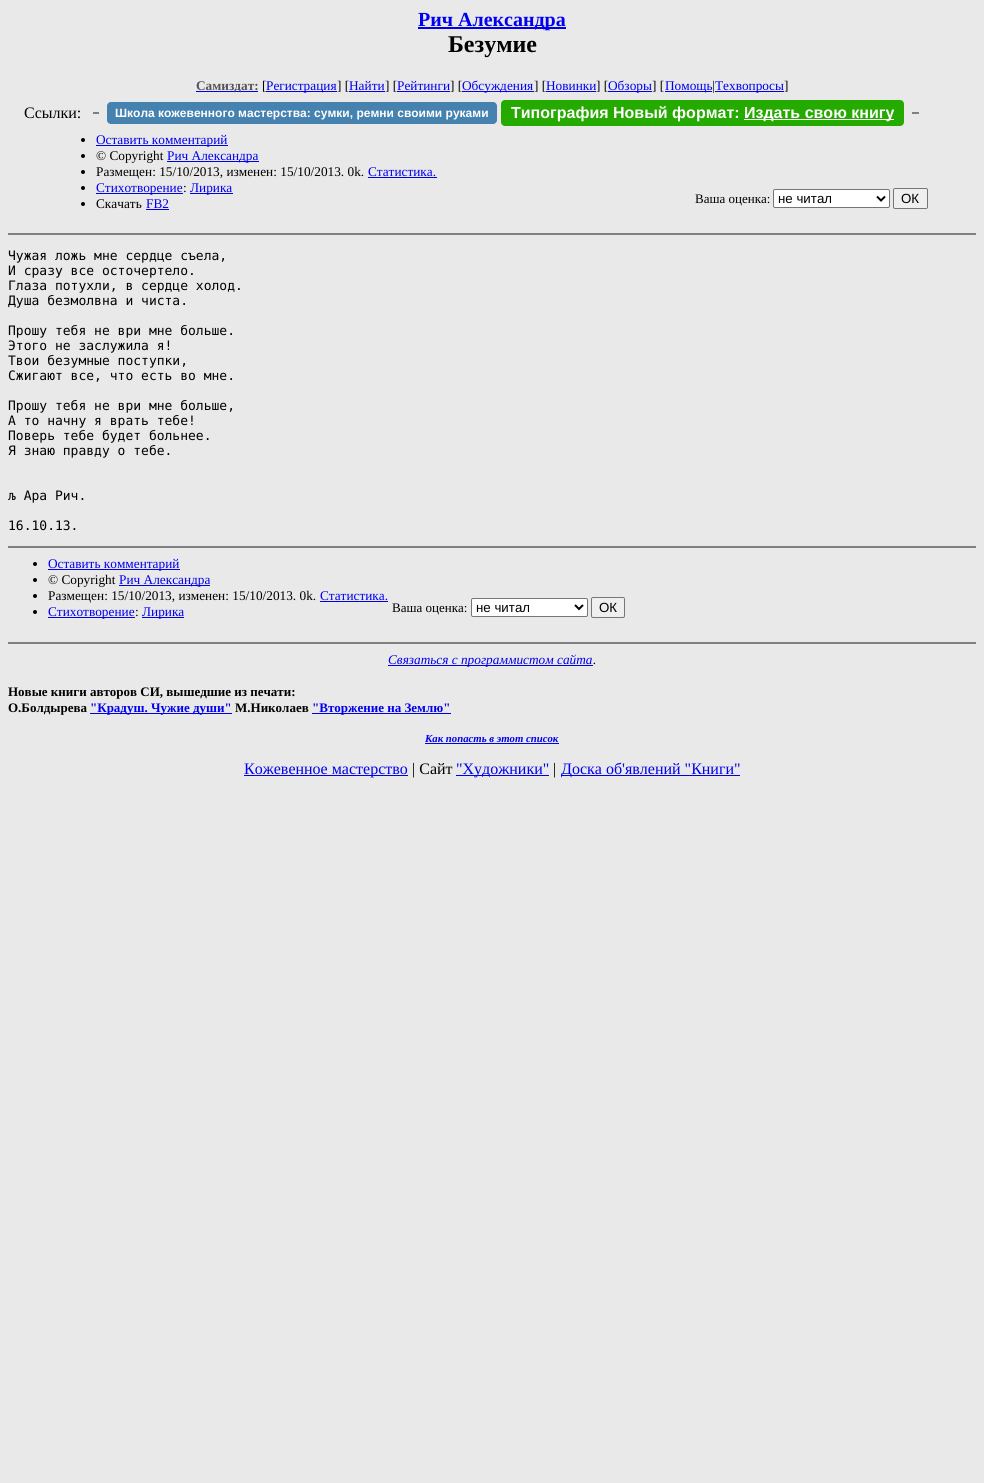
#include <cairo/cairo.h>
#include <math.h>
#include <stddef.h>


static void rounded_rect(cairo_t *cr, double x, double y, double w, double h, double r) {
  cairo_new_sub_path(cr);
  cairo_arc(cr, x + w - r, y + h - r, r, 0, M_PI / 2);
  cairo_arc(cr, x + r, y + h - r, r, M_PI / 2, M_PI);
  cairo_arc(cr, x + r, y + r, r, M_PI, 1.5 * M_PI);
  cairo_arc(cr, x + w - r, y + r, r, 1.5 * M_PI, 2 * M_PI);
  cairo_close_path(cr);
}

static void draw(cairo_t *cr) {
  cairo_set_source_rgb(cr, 233 / 255.0, 233 / 255.0, 233 / 255.0);
  cairo_paint(cr);
  cairo_set_source_rgb(cr, 0, 0, 238 / 255.0);
  cairo_rectangle(cr, 418, 27, 148, 2);
  cairo_fill(cr);
  cairo_rectangle(cr, 196, 91, 62, 1);
  cairo_fill(cr);
  cairo_rectangle(cr, 266, 91, 71, 1);
  cairo_fill(cr);
  cairo_rectangle(cr, 349, 91, 36, 1);
  cairo_fill(cr);
  cairo_rectangle(cr, 397, 91, 53, 1);
  cairo_fill(cr);
  cairo_rectangle(cr, 462, 91, 72, 1);
  cairo_fill(cr);
  cairo_rectangle(cr, 546, 91, 50, 1);
  cairo_fill(cr);
  cairo_rectangle(cr, 608, 91, 44, 1);
  cairo_fill(cr);
  cairo_rectangle(cr, 665, 91, 47, 1);
  cairo_fill(cr);
  cairo_rectangle(cr, 715, 91, 69, 1);
  cairo_fill(cr);
  cairo_set_source_rgb(cr, 128 / 255.0, 128 / 255.0, 128 / 255.0);
  cairo_rectangle(cr, 93, 112, 6, 2);
  cairo_fill(cr);
  cairo_set_source_rgb(cr, 69 / 255.0, 130 / 255.0, 175 / 255.0);
  rounded_rect(cr, 107, 102, 390, 22, 4);
  cairo_fill(cr);
  cairo_set_source_rgb(cr, 37 / 255.0, 170 / 255.0, 0);
  rounded_rect(cr, 501, 100, 403, 26, 4);
  cairo_fill(cr);
  cairo_set_source_rgb(cr, 1, 1, 1);
  cairo_rectangle(cr, 744, 119, 150, 1);
  cairo_fill(cr);
  cairo_set_source_rgb(cr, 128 / 255.0, 128 / 255.0, 128 / 255.0);
  cairo_rectangle(cr, 912, 112, 7, 2);
  cairo_fill(cr);
  cairo_set_source_rgb(cr, 0, 0, 0);
  cairo_arc(cr, 83, 140, 2, 0, 2 * M_PI);
  cairo_fill(cr);
  cairo_set_source_rgb(cr, 0, 0, 238 / 255.0);
  cairo_rectangle(cr, 96, 145, 132, 1);
  cairo_fill(cr);
  cairo_set_source_rgb(cr, 0, 0, 0);
  cairo_arc(cr, 83, 156, 2, 0, 2 * M_PI);
  cairo_fill(cr);
  cairo_set_source_rgb(cr, 0, 0, 238 / 255.0);
  cairo_rectangle(cr, 167, 161, 92, 1);
  cairo_fill(cr);
  cairo_set_source_rgb(cr, 0, 0, 0);
  cairo_arc(cr, 83, 172, 2, 0, 2 * M_PI);
  cairo_fill(cr);
  cairo_set_source_rgb(cr, 0, 0, 238 / 255.0);
  cairo_rectangle(cr, 368, 177, 69, 1);
  cairo_fill(cr);
  cairo_set_source_rgb(cr, 0, 0, 0);
  cairo_arc(cr, 83, 188, 2, 0, 2 * M_PI);
  cairo_fill(cr);
  cairo_set_source_rgb(cr, 0, 0, 238 / 255.0);
  cairo_rectangle(cr, 96, 193, 87, 1);
  cairo_fill(cr);
  cairo_rectangle(cr, 190, 193, 43, 1);
  cairo_fill(cr);
  cairo_set_source_rgb(cr, 0, 0, 0);
  cairo_arc(cr, 83, 204, 2, 0, 2 * M_PI);
  cairo_fill(cr);
  cairo_set_source_rgb(cr, 0, 0, 238 / 255.0);
  cairo_rectangle(cr, 146, 209, 23, 1);
  cairo_fill(cr);
  cairo_set_source_rgb(cr, 1, 1, 1);
  rounded_rect(cr, 773.5, 189.5, 116, 18, 1.5);
  cairo_fill_preserve(cr);
  cairo_set_source_rgb(cr, 118 / 255.0, 118 / 255.0, 118 / 255.0);
  cairo_set_line_width(cr, 1);
  cairo_stroke(cr);
  cairo_new_path(cr);
  cairo_move_to(cr, 877, 196.5);
  cairo_line_to(cr, 881, 200.5);
  cairo_line_to(cr, 885, 196.5);
  cairo_set_source_rgb(cr, 0, 0, 0);
  cairo_set_line_width(cr, 2);
  cairo_stroke(cr);
  cairo_set_source_rgb(cr, 239 / 255.0, 239 / 255.0, 239 / 255.0);
  rounded_rect(cr, 893.5, 188.5, 34, 20, 1.5);
  cairo_fill_preserve(cr);
  cairo_set_source_rgb(cr, 118 / 255.0, 118 / 255.0, 118 / 255.0);
  cairo_set_line_width(cr, 1);
  cairo_stroke(cr);
  cairo_set_source_rgb(cr, 128 / 255.0, 128 / 255.0, 128 / 255.0);
  cairo_rectangle(cr, 8, 233, 968, 2);
  cairo_fill(cr);
  cairo_rectangle(cr, 8, 546, 968, 2);
  cairo_fill(cr);
  cairo_set_source_rgb(cr, 0, 0, 0);
  cairo_arc(cr, 35, 564, 2, 0, 2 * M_PI);
  cairo_fill(cr);
  cairo_set_source_rgb(cr, 0, 0, 238 / 255.0);
  cairo_rectangle(cr, 48, 569, 132, 1);
  cairo_fill(cr);
  cairo_set_source_rgb(cr, 0, 0, 0);
  cairo_arc(cr, 35, 580, 2, 0, 2 * M_PI);
  cairo_fill(cr);
  cairo_set_source_rgb(cr, 0, 0, 238 / 255.0);
  cairo_rectangle(cr, 119, 585, 91, 1);
  cairo_fill(cr);
  cairo_set_source_rgb(cr, 0, 0, 0);
  cairo_arc(cr, 35, 596, 2, 0, 2 * M_PI);
  cairo_fill(cr);
  cairo_set_source_rgb(cr, 0, 0, 238 / 255.0);
  cairo_rectangle(cr, 320, 601, 68, 1);
  cairo_fill(cr);
  cairo_set_source_rgb(cr, 0, 0, 0);
  cairo_arc(cr, 35, 612, 2, 0, 2 * M_PI);
  cairo_fill(cr);
  cairo_set_source_rgb(cr, 0, 0, 238 / 255.0);
  cairo_rectangle(cr, 48, 617, 87, 1);
  cairo_fill(cr);
  cairo_rectangle(cr, 142, 617, 42, 1);
  cairo_fill(cr);
  cairo_set_source_rgb(cr, 1, 1, 1);
  rounded_rect(cr, 471.5, 598.5, 116, 18, 1.5);
  cairo_fill_preserve(cr);
  cairo_set_source_rgb(cr, 118 / 255.0, 118 / 255.0, 118 / 255.0);
  cairo_stroke(cr);
  cairo_new_path(cr);
  cairo_move_to(cr, 575, 605);
  cairo_line_to(cr, 579, 609);
  cairo_line_to(cr, 583, 605);
  cairo_set_source_rgb(cr, 0, 0, 0);
  cairo_set_line_width(cr, 2);
  cairo_stroke(cr);
  cairo_set_source_rgb(cr, 239 / 255.0, 239 / 255.0, 239 / 255.0);
  rounded_rect(cr, 591.5, 597.5, 33, 20, 1.5);
  cairo_fill_preserve(cr);
  cairo_set_source_rgb(cr, 118 / 255.0, 118 / 255.0, 118 / 255.0);
  cairo_set_line_width(cr, 1);
  cairo_stroke(cr);
  cairo_set_source_rgb(cr, 128 / 255.0, 128 / 255.0, 128 / 255.0);
  cairo_rectangle(cr, 8, 642, 968, 2);
  cairo_fill(cr);
  cairo_set_source_rgb(cr, 0, 0, 238 / 255.0);
  cairo_rectangle(cr, 388, 665, 205, 1);
  cairo_fill(cr);
  cairo_rectangle(cr, 90, 713, 142, 1);
  cairo_fill(cr);
  cairo_rectangle(cr, 312, 713, 139, 1);
  cairo_fill(cr);
  cairo_rectangle(cr, 425, 743, 134, 1);
  cairo_fill(cr);
  cairo_rectangle(cr, 244, 775, 164, 1);
  cairo_fill(cr);
  cairo_rectangle(cr, 456, 775, 93, 1);
  cairo_fill(cr);
  cairo_rectangle(cr, 561, 775, 179, 1);
  cairo_fill(cr);
  cairo_select_font_face(cr, "Liberation Serif", CAIRO_FONT_SLANT_NORMAL, CAIRO_FONT_WEIGHT_BOLD);
  cairo_set_font_size(cr, 20);
  cairo_move_to(cr, 418, 26);
  cairo_show_text(cr, "Рич Александра");
  cairo_set_font_size(cr, 24);
  cairo_set_source_rgb(cr, 0, 0, 0);
  cairo_move_to(cr, 448, 52);
  cairo_show_text(cr, "Безумие");
  cairo_set_font_size(cr, 13.3);
  cairo_set_source_rgb(cr, 85 / 255.0, 85 / 255.0, 85 / 255.0);
  cairo_move_to(cr, 196, 90);
  cairo_show_text(cr, "Самиздат:");
  cairo_select_font_face(cr, "Liberation Serif", CAIRO_FONT_SLANT_NORMAL, CAIRO_FONT_WEIGHT_NORMAL);
  cairo_set_source_rgb(cr, 0, 0, 0);
  cairo_move_to(cr, 262, 90);
  cairo_show_text(cr, "[");
  cairo_set_source_rgb(cr, 0, 0, 238 / 255.0);
  cairo_move_to(cr, 266, 90);
  cairo_show_text(cr, "Регистрация");
  cairo_set_source_rgb(cr, 0, 0, 0);
  cairo_move_to(cr, 337, 90);
  cairo_show_text(cr, "] [");
  cairo_set_source_rgb(cr, 0, 0, 238 / 255.0);
  cairo_move_to(cr, 349, 90);
  cairo_show_text(cr, "Найти");
  cairo_set_source_rgb(cr, 0, 0, 0);
  cairo_move_to(cr, 385, 90);
  cairo_show_text(cr, "] [");
  cairo_set_source_rgb(cr, 0, 0, 238 / 255.0);
  cairo_move_to(cr, 397, 90);
  cairo_show_text(cr, "Рейтинги");
  cairo_set_source_rgb(cr, 0, 0, 0);
  cairo_move_to(cr, 450, 90);
  cairo_show_text(cr, "] [");
  cairo_set_source_rgb(cr, 0, 0, 238 / 255.0);
  cairo_move_to(cr, 462, 90);
  cairo_show_text(cr, "Обсуждения");
  cairo_set_source_rgb(cr, 0, 0, 0);
  cairo_move_to(cr, 534, 90);
  cairo_show_text(cr, "] [");
  cairo_set_source_rgb(cr, 0, 0, 238 / 255.0);
  cairo_move_to(cr, 546, 90);
  cairo_show_text(cr, "Новинки");
  cairo_set_source_rgb(cr, 0, 0, 0);
  cairo_move_to(cr, 596, 90);
  cairo_show_text(cr, "] [");
  cairo_set_source_rgb(cr, 0, 0, 238 / 255.0);
  cairo_move_to(cr, 608, 90);
  cairo_show_text(cr, "Обзоры");
  cairo_set_source_rgb(cr, 0, 0, 0);
  cairo_move_to(cr, 652, 90);
  cairo_show_text(cr, "] [");
  cairo_set_source_rgb(cr, 0, 0, 238 / 255.0);
  cairo_move_to(cr, 665, 90);
  cairo_show_text(cr, "Помощь");
  cairo_set_source_rgb(cr, 0, 0, 0);
  cairo_move_to(cr, 712, 90);
  cairo_show_text(cr, "|");
  cairo_set_source_rgb(cr, 0, 0, 238 / 255.0);
  cairo_move_to(cr, 715, 90);
  cairo_show_text(cr, "Техвопросы");
  cairo_set_source_rgb(cr, 0, 0, 0);
  cairo_move_to(cr, 784, 90);
  cairo_show_text(cr, "]");
  cairo_set_font_size(cr, 16);
  cairo_move_to(cr, 24, 118);
  cairo_show_text(cr, "Ссылки:");
  cairo_select_font_face(cr, "Liberation Sans", CAIRO_FONT_SLANT_NORMAL, CAIRO_FONT_WEIGHT_BOLD);
  cairo_set_font_size(cr, 12);
  cairo_set_source_rgb(cr, 1, 1, 1);
  cairo_move_to(cr, 115, 117);
  cairo_show_text(cr, "Школа кожевенного мастерства: сумки, ремни своими руками");
  cairo_set_font_size(cr, 16);
  cairo_move_to(cr, 511, 118);
  cairo_show_text(cr, "Типография Новый формат:");
  cairo_move_to(cr, 744, 118);
  cairo_show_text(cr, "Издать свою книгу");
  cairo_select_font_face(cr, "Liberation Serif", CAIRO_FONT_SLANT_NORMAL, CAIRO_FONT_WEIGHT_NORMAL);
  cairo_set_font_size(cr, 13.3);
  cairo_set_source_rgb(cr, 0, 0, 238 / 255.0);
  cairo_move_to(cr, 96, 144);
  cairo_show_text(cr, "Оставить комментарий");
  cairo_set_source_rgb(cr, 0, 0, 0);
  cairo_move_to(cr, 96, 160);
  cairo_show_text(cr, "© Copyright");
  cairo_set_source_rgb(cr, 0, 0, 238 / 255.0);
  cairo_move_to(cr, 167, 160);
  cairo_show_text(cr, "Рич Александра");
  cairo_set_source_rgb(cr, 0, 0, 0);
  cairo_move_to(cr, 96, 176);
  cairo_show_text(cr, "Размещен: 15/10/2013, изменен: 15/10/2013. 0k.");
  cairo_set_source_rgb(cr, 0, 0, 238 / 255.0);
  cairo_move_to(cr, 368, 176);
  cairo_show_text(cr, "Статистика.");
  cairo_move_to(cr, 96, 192);
  cairo_show_text(cr, "Стихотворение");
  cairo_set_source_rgb(cr, 0, 0, 0);
  cairo_move_to(cr, 183, 192);
  cairo_show_text(cr, ":");
  cairo_set_source_rgb(cr, 0, 0, 238 / 255.0);
  cairo_move_to(cr, 190, 192);
  cairo_show_text(cr, "Лирика");
  cairo_set_source_rgb(cr, 0, 0, 0);
  cairo_move_to(cr, 96, 208);
  cairo_show_text(cr, "Скачать");
  cairo_set_source_rgb(cr, 0, 0, 238 / 255.0);
  cairo_move_to(cr, 146, 208);
  cairo_show_text(cr, "FB2");
  cairo_set_font_size(cr, 13);
  cairo_set_source_rgb(cr, 0, 0, 0);
  cairo_move_to(cr, 695, 203);
  cairo_show_text(cr, "Ваша оценка:");
  cairo_select_font_face(cr, "Liberation Sans", CAIRO_FONT_SLANT_NORMAL, CAIRO_FONT_WEIGHT_NORMAL);
  cairo_set_font_size(cr, 13.3);
  cairo_move_to(cr, 778, 203);
  cairo_show_text(cr, "не читал");
  cairo_move_to(cr, 901, 203);
  cairo_show_text(cr, "ОК");
  cairo_select_font_face(cr, "DejaVu Sans Mono", CAIRO_FONT_SLANT_NORMAL, CAIRO_FONT_WEIGHT_NORMAL);
  cairo_set_font_size(cr, 13);
  cairo_move_to(cr, 8, 260);
  cairo_show_text(cr, "Чужая ложь мне сердце съела,");
  cairo_move_to(cr, 8, 275);
  cairo_show_text(cr, "И сразу все осточертело.");
  cairo_move_to(cr, 8, 290);
  cairo_show_text(cr, "Глаза потухли, в сердце холод.");
  cairo_move_to(cr, 8, 305);
  cairo_show_text(cr, "Душа безмолвна и чиста.");
  cairo_move_to(cr, 8, 335);
  cairo_show_text(cr, "Прошу тебя не ври мне больше.");
  cairo_move_to(cr, 8, 350);
  cairo_show_text(cr, "Этого не заслужила я!");
  cairo_move_to(cr, 8, 365);
  cairo_show_text(cr, "Твои безумные поступки,");
  cairo_move_to(cr, 8, 380);
  cairo_show_text(cr, "Сжигают все, что есть во мне.");
  cairo_move_to(cr, 8, 410);
  cairo_show_text(cr, "Прошу тебя не ври мне больше,");
  cairo_move_to(cr, 8, 425);
  cairo_show_text(cr, "А то начну я врать тебе!");
  cairo_move_to(cr, 8, 440);
  cairo_show_text(cr, "Поверь тебе будет больнее.");
  cairo_move_to(cr, 8, 455);
  cairo_show_text(cr, "Я знаю правду о тебе.");
  cairo_move_to(cr, 8, 500);
  cairo_show_text(cr, "љ Ара Рич.");
  cairo_move_to(cr, 8, 530);
  cairo_show_text(cr, "16.10.13.");
  cairo_select_font_face(cr, "Liberation Serif", CAIRO_FONT_SLANT_NORMAL, CAIRO_FONT_WEIGHT_NORMAL);
  cairo_set_font_size(cr, 13.3);
  cairo_set_source_rgb(cr, 0, 0, 238 / 255.0);
  cairo_move_to(cr, 48, 568);
  cairo_show_text(cr, "Оставить комментарий");
  cairo_set_source_rgb(cr, 0, 0, 0);
  cairo_move_to(cr, 48, 584);
  cairo_show_text(cr, "© Copyright");
  cairo_set_source_rgb(cr, 0, 0, 238 / 255.0);
  cairo_move_to(cr, 119, 584);
  cairo_show_text(cr, "Рич Александра");
  cairo_set_source_rgb(cr, 0, 0, 0);
  cairo_move_to(cr, 48, 600);
  cairo_show_text(cr, "Размещен: 15/10/2013, изменен: 15/10/2013. 0k.");
  cairo_set_source_rgb(cr, 0, 0, 238 / 255.0);
  cairo_move_to(cr, 320, 600);
  cairo_show_text(cr, "Статистика.");
  cairo_move_to(cr, 48, 616);
  cairo_show_text(cr, "Стихотворение");
  cairo_set_source_rgb(cr, 0, 0, 0);
  cairo_move_to(cr, 135, 616);
  cairo_show_text(cr, ":");
  cairo_set_source_rgb(cr, 0, 0, 238 / 255.0);
  cairo_move_to(cr, 142, 616);
  cairo_show_text(cr, "Лирика");
  cairo_set_font_size(cr, 13);
  cairo_set_source_rgb(cr, 0, 0, 0);
  cairo_move_to(cr, 392, 612);
  cairo_show_text(cr, "Ваша оценка:");
  cairo_select_font_face(cr, "Liberation Sans", CAIRO_FONT_SLANT_NORMAL, CAIRO_FONT_WEIGHT_NORMAL);
  cairo_set_font_size(cr, 13.3);
  cairo_move_to(cr, 476, 612);
  cairo_show_text(cr, "не читал");
  cairo_move_to(cr, 599, 612);
  cairo_show_text(cr, "ОК");
  cairo_select_font_face(cr, "Liberation Serif", CAIRO_FONT_SLANT_ITALIC, CAIRO_FONT_WEIGHT_NORMAL);
  cairo_set_source_rgb(cr, 0, 0, 238 / 255.0);
  cairo_move_to(cr, 388, 664);
  cairo_show_text(cr, "Связаться с программистом сайта");
  cairo_set_source_rgb(cr, 0, 0, 0);
  cairo_move_to(cr, 593, 664);
  cairo_show_text(cr, ".");
  cairo_select_font_face(cr, "Liberation Serif", CAIRO_FONT_SLANT_NORMAL, CAIRO_FONT_WEIGHT_BOLD);
  cairo_set_font_size(cr, 13);
  cairo_move_to(cr, 8, 696);
  cairo_show_text(cr, "Новые книги авторов СИ, вышедшие из печати:");
  cairo_move_to(cr, 8, 712);
  cairo_show_text(cr, "О.Болдырева");
  cairo_set_source_rgb(cr, 0, 0, 238 / 255.0);
  cairo_move_to(cr, 90, 712);
  cairo_show_text(cr, "\"Крадуш. Чужие души\"");
  cairo_set_source_rgb(cr, 0, 0, 0);
  cairo_move_to(cr, 235, 712);
  cairo_show_text(cr, "М.Николаев");
  cairo_set_source_rgb(cr, 0, 0, 238 / 255.0);
  cairo_move_to(cr, 312, 712);
  cairo_show_text(cr, "\"Вторжение на Землю\"");
  cairo_select_font_face(cr, "Liberation Serif", CAIRO_FONT_SLANT_ITALIC, CAIRO_FONT_WEIGHT_BOLD);
  cairo_set_font_size(cr, 10.75);
  cairo_move_to(cr, 425, 742);
  cairo_show_text(cr, "Как попасть в этoт список");
  cairo_select_font_face(cr, "Liberation Serif", CAIRO_FONT_SLANT_NORMAL, CAIRO_FONT_WEIGHT_NORMAL);
  cairo_set_font_size(cr, 16);
  cairo_move_to(cr, 244, 774);
  cairo_show_text(cr, "Кожевенное мастерство");
  cairo_set_source_rgb(cr, 0, 0, 0);
  cairo_move_to(cr, 412, 774);
  cairo_show_text(cr, "| Сайт");
  cairo_set_source_rgb(cr, 0, 0, 238 / 255.0);
  cairo_move_to(cr, 456, 774);
  cairo_show_text(cr, "\"Художники\"");
  cairo_set_source_rgb(cr, 0, 0, 0);
  cairo_move_to(cr, 553, 774);
  cairo_show_text(cr, "|");
  cairo_set_source_rgb(cr, 0, 0, 238 / 255.0);
  cairo_move_to(cr, 561, 774);
  cairo_show_text(cr, "Доска об'явлений \"Книги\"");
}

int main(void) {
  cairo_surface_t *surface = cairo_image_surface_create(CAIRO_FORMAT_RGB24, 984, 1483);
  cairo_t *cr = cairo_create(surface);
  cairo_font_options_t *options = cairo_font_options_create();
  cairo_font_options_set_hint_metrics(options, CAIRO_HINT_METRICS_OFF);
  cairo_font_options_set_hint_style(options, CAIRO_HINT_STYLE_NONE);
  cairo_set_font_options(cr, options);
  cairo_set_miter_limit(cr, 4);
  draw(cr);
  cairo_surface_write_to_png(surface, "out.png");
  cairo_font_options_destroy(options);
  cairo_destroy(cr);
  cairo_surface_destroy(surface);
  return 0;
}
